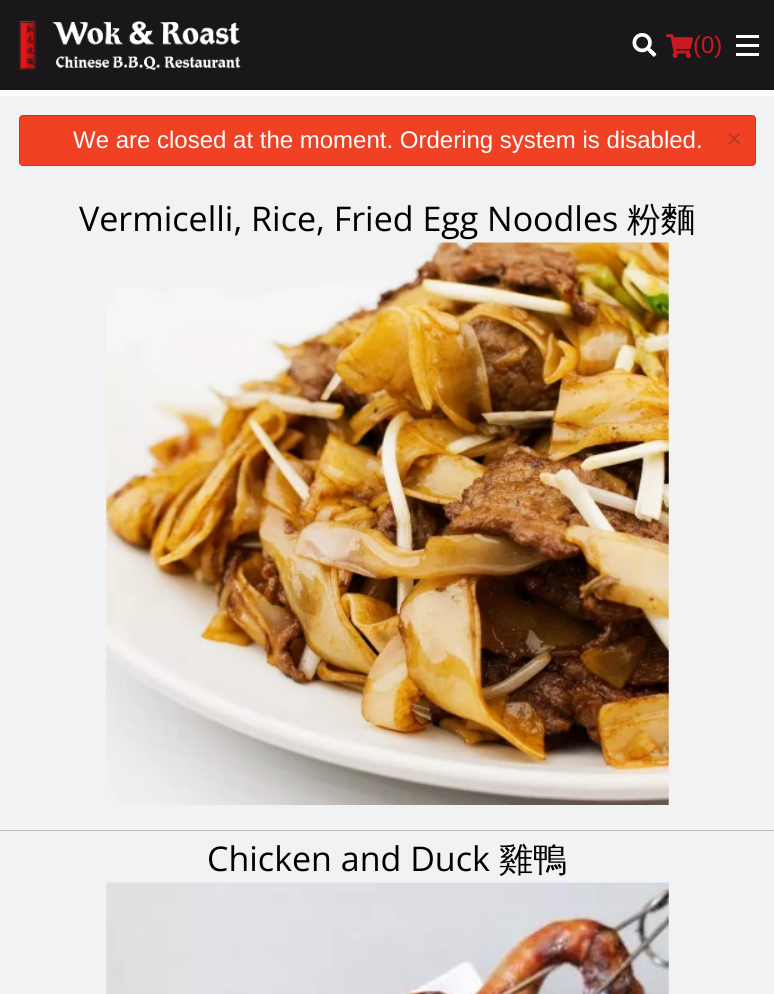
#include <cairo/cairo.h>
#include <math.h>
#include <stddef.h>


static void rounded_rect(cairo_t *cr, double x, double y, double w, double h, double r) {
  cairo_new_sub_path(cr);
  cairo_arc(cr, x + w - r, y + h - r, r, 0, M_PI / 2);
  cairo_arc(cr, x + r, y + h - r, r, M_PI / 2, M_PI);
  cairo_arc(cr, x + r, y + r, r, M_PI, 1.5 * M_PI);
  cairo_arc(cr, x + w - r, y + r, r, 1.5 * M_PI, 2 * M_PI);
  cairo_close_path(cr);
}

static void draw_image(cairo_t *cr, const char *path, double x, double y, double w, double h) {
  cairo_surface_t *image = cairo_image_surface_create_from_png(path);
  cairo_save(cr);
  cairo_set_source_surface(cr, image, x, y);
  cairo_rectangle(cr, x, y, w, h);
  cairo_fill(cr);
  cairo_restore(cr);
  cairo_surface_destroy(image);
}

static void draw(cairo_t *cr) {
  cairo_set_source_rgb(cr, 241 / 255.0, 242 / 255.0, 243 / 255.0);
  cairo_paint(cr);
  cairo_set_source_rgb(cr, 26 / 255.0, 23 / 255.0, 27 / 255.0);
  cairo_rectangle(cr, 0, 0, 774, 90);
  cairo_fill(cr);
  draw_image(cr, "images/1.png", 19, 20, 222, 51);
  draw_image(cr, "images/2.png", 632, 33, 25, 24);
  draw_image(cr, "images/3.png", 666, 34, 27, 24);
  cairo_set_source_rgb(cr, 1, 1, 1);
  cairo_rectangle(cr, 736, 53, 23, 3);
  cairo_fill(cr);
  cairo_rectangle(cr, 736, 44, 23, 3);
  cairo_fill(cr);
  cairo_rectangle(cr, 736, 35, 23, 3);
  cairo_fill(cr);
  cairo_set_source_rgb(cr, 250 / 255.0, 250 / 255.0, 250 / 255.0);
  cairo_rectangle(cr, 0, 90, 774, 6);
  cairo_fill(cr);
  cairo_set_source_rgb(cr, 240 / 255.0, 65 / 255.0, 36 / 255.0);
  rounded_rect(cr, 19.5, 115.5, 736, 50, 3.5);
  cairo_fill_preserve(cr);
  cairo_set_source_rgb(cr, 222 / 255.0, 45 / 255.0, 15 / 255.0);
  cairo_set_line_width(cr, 1);
  cairo_stroke(cr);
  cairo_set_source_rgb(cr, 189 / 255.0, 189 / 255.0, 189 / 255.0);
  cairo_rectangle(cr, 0, 830, 774, 1);
  cairo_fill(cr);
  draw_image(cr, "images/4.png", 106, 242, 563, 563);
  draw_image(cr, "images/5.png", 106, 882, 563, 112);
  cairo_select_font_face(cr, "Liberation Sans", CAIRO_FONT_SLANT_NORMAL, CAIRO_FONT_WEIGHT_NORMAL);
  cairo_set_font_size(cr, 24);
  cairo_set_source_rgb(cr, 200 / 255.0, 26 / 255.0, 33 / 255.0);
  cairo_move_to(cr, 693, 53);
  cairo_show_text(cr, "(0)");
  cairo_set_source_rgb(cr, 1, 1, 1);
  cairo_move_to(cr, 73, 148);
  cairo_show_text(cr, "We are closed at the moment. Ordering system is disabled.");
  cairo_set_font_size(cr, 28);
  cairo_set_source_rgb(cr, 183 / 255.0, 61 / 255.0, 41 / 255.0);
  cairo_move_to(cr, 726, 148);
  cairo_show_text(cr, "×");
  cairo_select_font_face(cr, "Open Sans", CAIRO_FONT_SLANT_NORMAL, CAIRO_FONT_WEIGHT_NORMAL);
  cairo_set_font_size(cr, 34);
  cairo_set_source_rgb(cr, 0, 0, 0);
  cairo_move_to(cr, 79, 231);
  cairo_show_text(cr, "Vermicelli, Rice, Fried Egg Noodles");
  cairo_select_font_face(cr, "WenQuanYi Zen Hei Medium", CAIRO_FONT_SLANT_NORMAL, CAIRO_FONT_WEIGHT_NORMAL);
  cairo_move_to(cr, 627, 231);
  cairo_show_text(cr, "粉麵");
  cairo_select_font_face(cr, "Open Sans", CAIRO_FONT_SLANT_NORMAL, CAIRO_FONT_WEIGHT_NORMAL);
  cairo_move_to(cr, 207, 871);
  cairo_show_text(cr, "Chicken and Duck");
  cairo_select_font_face(cr, "WenQuanYi Zen Hei Medium", CAIRO_FONT_SLANT_NORMAL, CAIRO_FONT_WEIGHT_NORMAL);
  cairo_move_to(cr, 499, 871);
  cairo_show_text(cr, "雞鴨");
}

int main(void) {
  cairo_surface_t *surface = cairo_image_surface_create(CAIRO_FORMAT_RGB24, 774, 994);
  cairo_t *cr = cairo_create(surface);
  cairo_font_options_t *options = cairo_font_options_create();
  cairo_font_options_set_hint_metrics(options, CAIRO_HINT_METRICS_OFF);
  cairo_font_options_set_hint_style(options, CAIRO_HINT_STYLE_NONE);
  cairo_set_font_options(cr, options);
  cairo_set_miter_limit(cr, 4);
  draw(cr);
  cairo_surface_write_to_png(surface, "out.png");
  cairo_font_options_destroy(options);
  cairo_destroy(cr);
  cairo_surface_destroy(surface);
  return 0;
}
